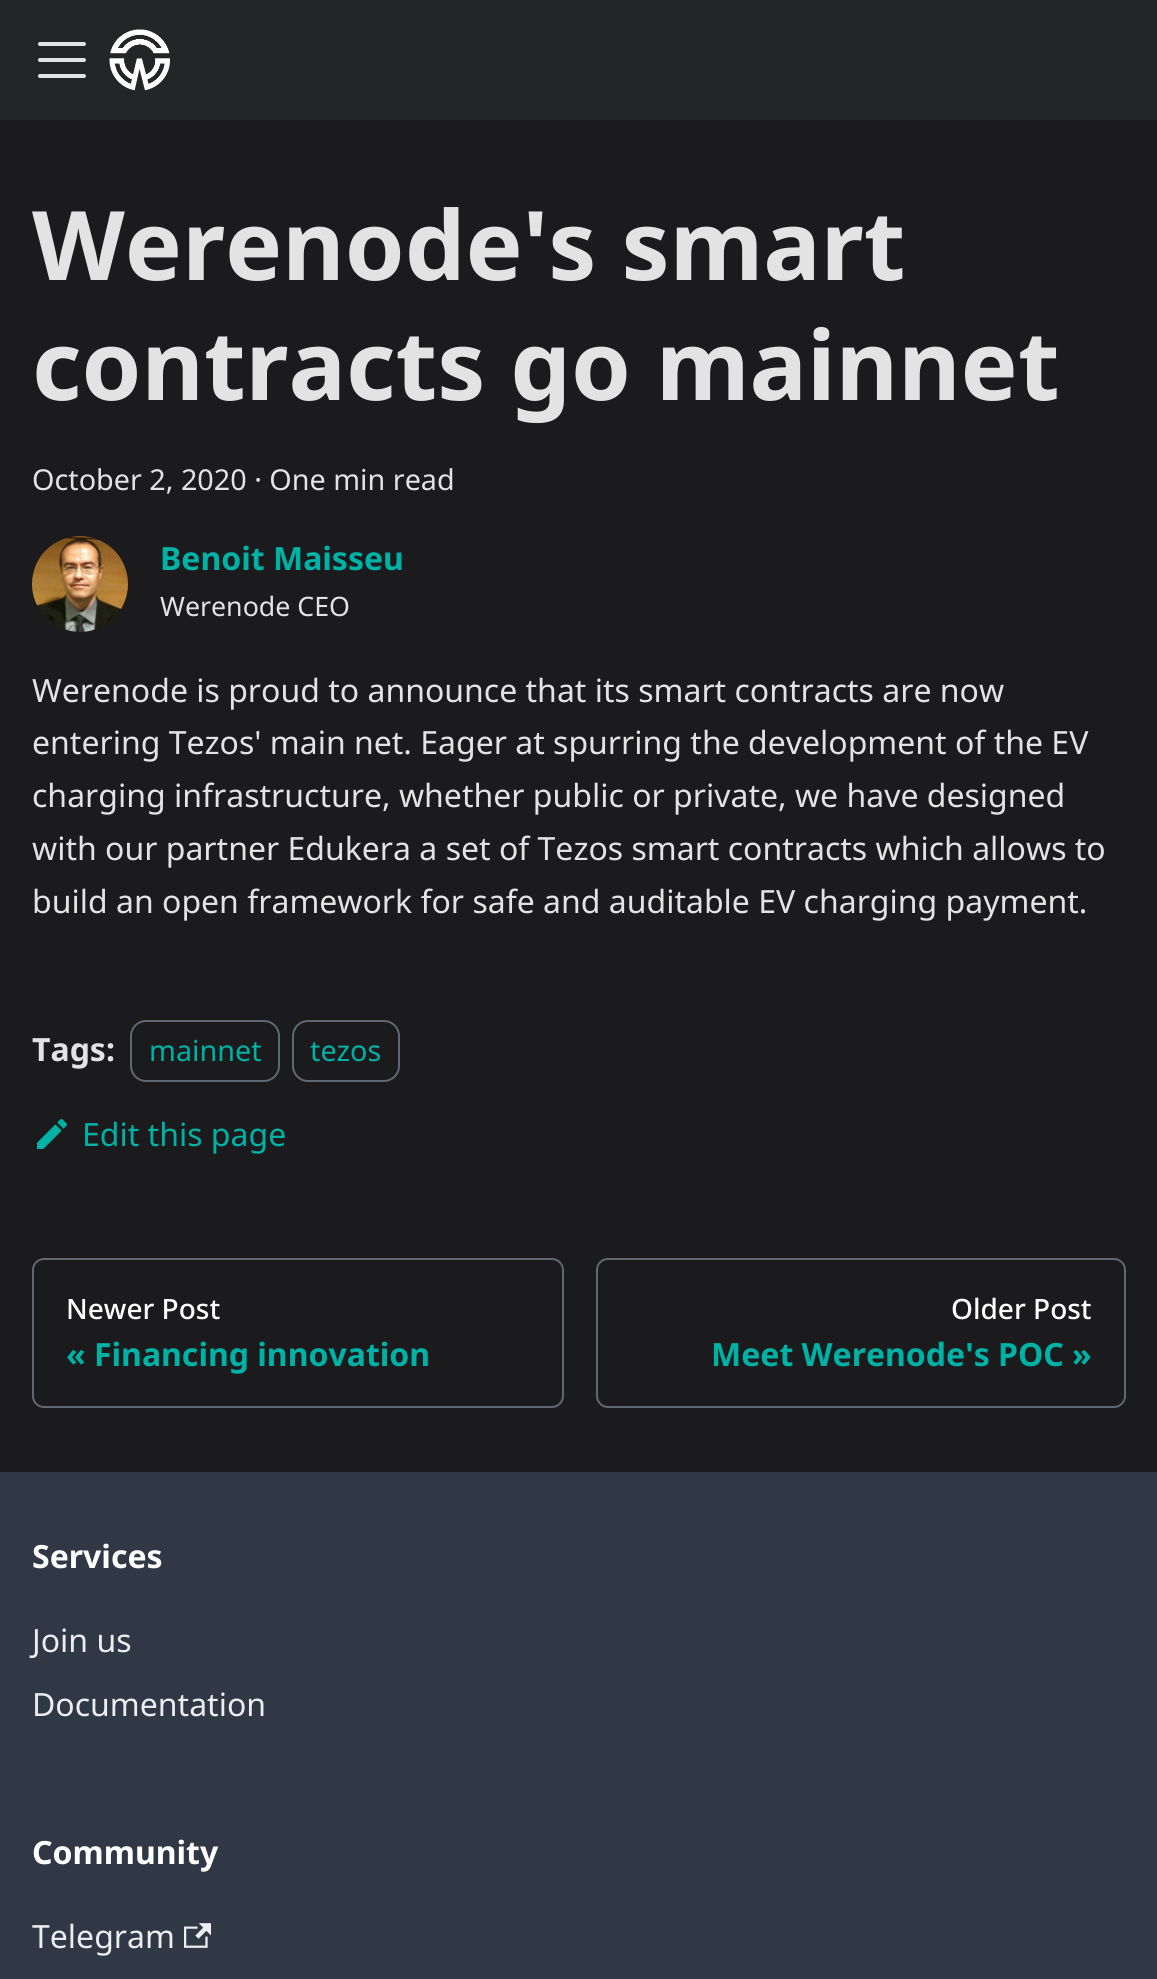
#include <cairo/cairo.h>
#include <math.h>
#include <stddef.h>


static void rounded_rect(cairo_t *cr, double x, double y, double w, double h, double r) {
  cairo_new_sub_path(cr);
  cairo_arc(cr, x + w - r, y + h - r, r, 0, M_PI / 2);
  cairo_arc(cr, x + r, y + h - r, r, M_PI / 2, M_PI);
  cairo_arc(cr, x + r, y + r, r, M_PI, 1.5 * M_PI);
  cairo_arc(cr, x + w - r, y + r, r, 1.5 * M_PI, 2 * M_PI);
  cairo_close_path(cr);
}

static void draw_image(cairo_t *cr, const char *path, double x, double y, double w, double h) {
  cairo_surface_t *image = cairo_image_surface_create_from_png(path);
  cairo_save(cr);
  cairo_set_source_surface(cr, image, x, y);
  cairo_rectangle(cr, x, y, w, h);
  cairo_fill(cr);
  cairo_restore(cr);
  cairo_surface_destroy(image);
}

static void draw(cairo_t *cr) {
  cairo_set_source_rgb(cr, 27 / 255.0, 27 / 255.0, 29 / 255.0);
  cairo_paint(cr);
  cairo_set_source_rgb(cr, 36 / 255.0, 37 / 255.0, 38 / 255.0);
  cairo_rectangle(cr, 0, 0, 1157, 120);
  cairo_fill(cr);
  cairo_new_path(cr);
  cairo_move_to(cr, 40, 44);
  cairo_line_to(cr, 84, 44);
  cairo_move_to(cr, 40, 60);
  cairo_line_to(cr, 84, 60);
  cairo_move_to(cr, 40, 76);
  cairo_line_to(cr, 84, 76);
  cairo_set_source_rgb(cr, 227 / 255.0, 227 / 255.0, 227 / 255.0);
  cairo_set_line_width(cr, 4);
  cairo_set_line_cap(cr, CAIRO_LINE_CAP_ROUND);
  cairo_stroke(cr);
  draw_image(cr, "images/1.png", 109, 29, 61, 62);
  draw_image(cr, "images/2.png", 32, 536, 96, 96);
  rounded_rect(cr, 131, 1021, 148, 60, 15);
  cairo_set_source_rgb(cr, 96 / 255.0, 103 / 255.0, 112 / 255.0);
  cairo_set_line_width(cr, 2);
  cairo_set_line_cap(cr, CAIRO_LINE_CAP_BUTT);
  cairo_stroke(cr);
  rounded_rect(cr, 293, 1021, 106, 60, 15);
  cairo_stroke(cr);
  draw_image(cr, "images/3.png", 37, 1119, 30, 30);
  rounded_rect(cr, 33, 1259, 530, 148, 11);
  cairo_stroke(cr);
  rounded_rect(cr, 597, 1259, 528, 148, 11);
  cairo_stroke(cr);
  cairo_set_source_rgb(cr, 48 / 255.0, 56 / 255.0, 70 / 255.0);
  cairo_rectangle(cr, 0, 1472, 1157, 507);
  cairo_fill(cr);
  draw_image(cr, "images/4.png", 184, 1923, 27, 25);
  cairo_select_font_face(cr, "Noto Sans", CAIRO_FONT_SLANT_NORMAL, CAIRO_FONT_WEIGHT_BOLD);
  cairo_set_font_size(cr, 96);
  cairo_set_source_rgb(cr, 227 / 255.0, 227 / 255.0, 227 / 255.0);
  cairo_move_to(cr, 32, 280);
  cairo_show_text(cr, "Werenode's smart");
  cairo_move_to(cr, 32, 400);
  cairo_show_text(cr, "contracts go mainnet");
  cairo_select_font_face(cr, "Noto Sans", CAIRO_FONT_SLANT_NORMAL, CAIRO_FONT_WEIGHT_NORMAL);
  cairo_set_font_size(cr, 28.75);
  cairo_move_to(cr, 32, 490);
  cairo_show_text(cr, "October 2, 2020 · One min read");
  cairo_select_font_face(cr, "Noto Sans", CAIRO_FONT_SLANT_NORMAL, CAIRO_FONT_WEIGHT_BOLD);
  cairo_set_font_size(cr, 32);
  cairo_set_source_rgb(cr, 0, 178 / 255.0, 166 / 255.0);
  cairo_move_to(cr, 160, 570);
  cairo_show_text(cr, "Benoit Maisseu");
  cairo_select_font_face(cr, "Noto Sans", CAIRO_FONT_SLANT_NORMAL, CAIRO_FONT_WEIGHT_NORMAL);
  cairo_set_font_size(cr, 26.75);
  cairo_set_source_rgb(cr, 227 / 255.0, 227 / 255.0, 227 / 255.0);
  cairo_move_to(cr, 160, 616);
  cairo_show_text(cr, "Werenode CEO");
  cairo_set_font_size(cr, 32);
  cairo_move_to(cr, 32, 702);
  cairo_show_text(cr, "Werenode is proud to announce that its smart contracts are now");
  cairo_move_to(cr, 32, 754);
  cairo_show_text(cr, "entering Tezos' main net. Eager at spurring the development of the EV");
  cairo_move_to(cr, 32, 807);
  cairo_show_text(cr, "charging infrastructure, whether public or private, we have designed");
  cairo_move_to(cr, 32, 860);
  cairo_show_text(cr, "with our partner Edukera a set of Tezos smart contracts which allows to");
  cairo_move_to(cr, 32, 913);
  cairo_show_text(cr, "build an open framework for safe and auditable EV charging payment.");
  cairo_select_font_face(cr, "Noto Sans", CAIRO_FONT_SLANT_NORMAL, CAIRO_FONT_WEIGHT_BOLD);
  cairo_move_to(cr, 32, 1061);
  cairo_show_text(cr, "Tags:");
  cairo_select_font_face(cr, "Noto Sans", CAIRO_FONT_SLANT_NORMAL, CAIRO_FONT_WEIGHT_NORMAL);
  cairo_set_font_size(cr, 28.75);
  cairo_set_source_rgb(cr, 0, 178 / 255.0, 166 / 255.0);
  cairo_move_to(cr, 149, 1061);
  cairo_show_text(cr, "mainnet");
  cairo_move_to(cr, 310, 1061);
  cairo_show_text(cr, "tezos");
  cairo_set_font_size(cr, 32);
  cairo_move_to(cr, 82, 1146);
  cairo_show_text(cr, "Edit this page");
  cairo_select_font_face(cr, "Noto Sans Medium", CAIRO_FONT_SLANT_NORMAL, CAIRO_FONT_WEIGHT_NORMAL);
  cairo_set_font_size(cr, 28);
  cairo_set_source_rgb(cr, 1, 1, 1);
  cairo_move_to(cr, 66, 1319);
  cairo_show_text(cr, "Newer Post");
  cairo_select_font_face(cr, "Noto Sans", CAIRO_FONT_SLANT_NORMAL, CAIRO_FONT_WEIGHT_BOLD);
  cairo_set_font_size(cr, 32);
  cairo_set_source_rgb(cr, 0, 178 / 255.0, 166 / 255.0);
  cairo_move_to(cr, 66, 1366);
  cairo_show_text(cr, "« Financing innovation");
  cairo_select_font_face(cr, "Noto Sans Medium", CAIRO_FONT_SLANT_NORMAL, CAIRO_FONT_WEIGHT_NORMAL);
  cairo_set_font_size(cr, 28);
  cairo_set_source_rgb(cr, 1, 1, 1);
  cairo_move_to(cr, 951, 1319);
  cairo_show_text(cr, "Older Post");
  cairo_select_font_face(cr, "Noto Sans", CAIRO_FONT_SLANT_NORMAL, CAIRO_FONT_WEIGHT_BOLD);
  cairo_set_font_size(cr, 32);
  cairo_set_source_rgb(cr, 0, 178 / 255.0, 166 / 255.0);
  cairo_move_to(cr, 711, 1366);
  cairo_show_text(cr, "Meet Werenode's POC »");
  cairo_set_source_rgb(cr, 1, 1, 1);
  cairo_move_to(cr, 32, 1568);
  cairo_show_text(cr, "Services");
  cairo_select_font_face(cr, "Noto Sans", CAIRO_FONT_SLANT_NORMAL, CAIRO_FONT_WEIGHT_NORMAL);
  cairo_set_source_rgb(cr, 235 / 255.0, 237 / 255.0, 240 / 255.0);
  cairo_move_to(cr, 32, 1652);
  cairo_show_text(cr, "Join us");
  cairo_move_to(cr, 32, 1716);
  cairo_show_text(cr, "Documentation");
  cairo_select_font_face(cr, "Noto Sans", CAIRO_FONT_SLANT_NORMAL, CAIRO_FONT_WEIGHT_BOLD);
  cairo_set_source_rgb(cr, 1, 1, 1);
  cairo_move_to(cr, 32, 1864);
  cairo_show_text(cr, "Community");
  cairo_select_font_face(cr, "Noto Sans", CAIRO_FONT_SLANT_NORMAL, CAIRO_FONT_WEIGHT_NORMAL);
  cairo_set_source_rgb(cr, 235 / 255.0, 237 / 255.0, 240 / 255.0);
  cairo_move_to(cr, 32, 1948);
  cairo_show_text(cr, "Telegram");
}

int main(void) {
  cairo_surface_t *surface = cairo_image_surface_create(CAIRO_FORMAT_RGB24, 1157, 1979);
  cairo_t *cr = cairo_create(surface);
  cairo_font_options_t *options = cairo_font_options_create();
  cairo_font_options_set_hint_metrics(options, CAIRO_HINT_METRICS_OFF);
  cairo_font_options_set_hint_style(options, CAIRO_HINT_STYLE_NONE);
  cairo_set_font_options(cr, options);
  cairo_set_miter_limit(cr, 4);
  draw(cr);
  cairo_surface_write_to_png(surface, "out.png");
  cairo_font_options_destroy(options);
  cairo_destroy(cr);
  cairo_surface_destroy(surface);
  return 0;
}
